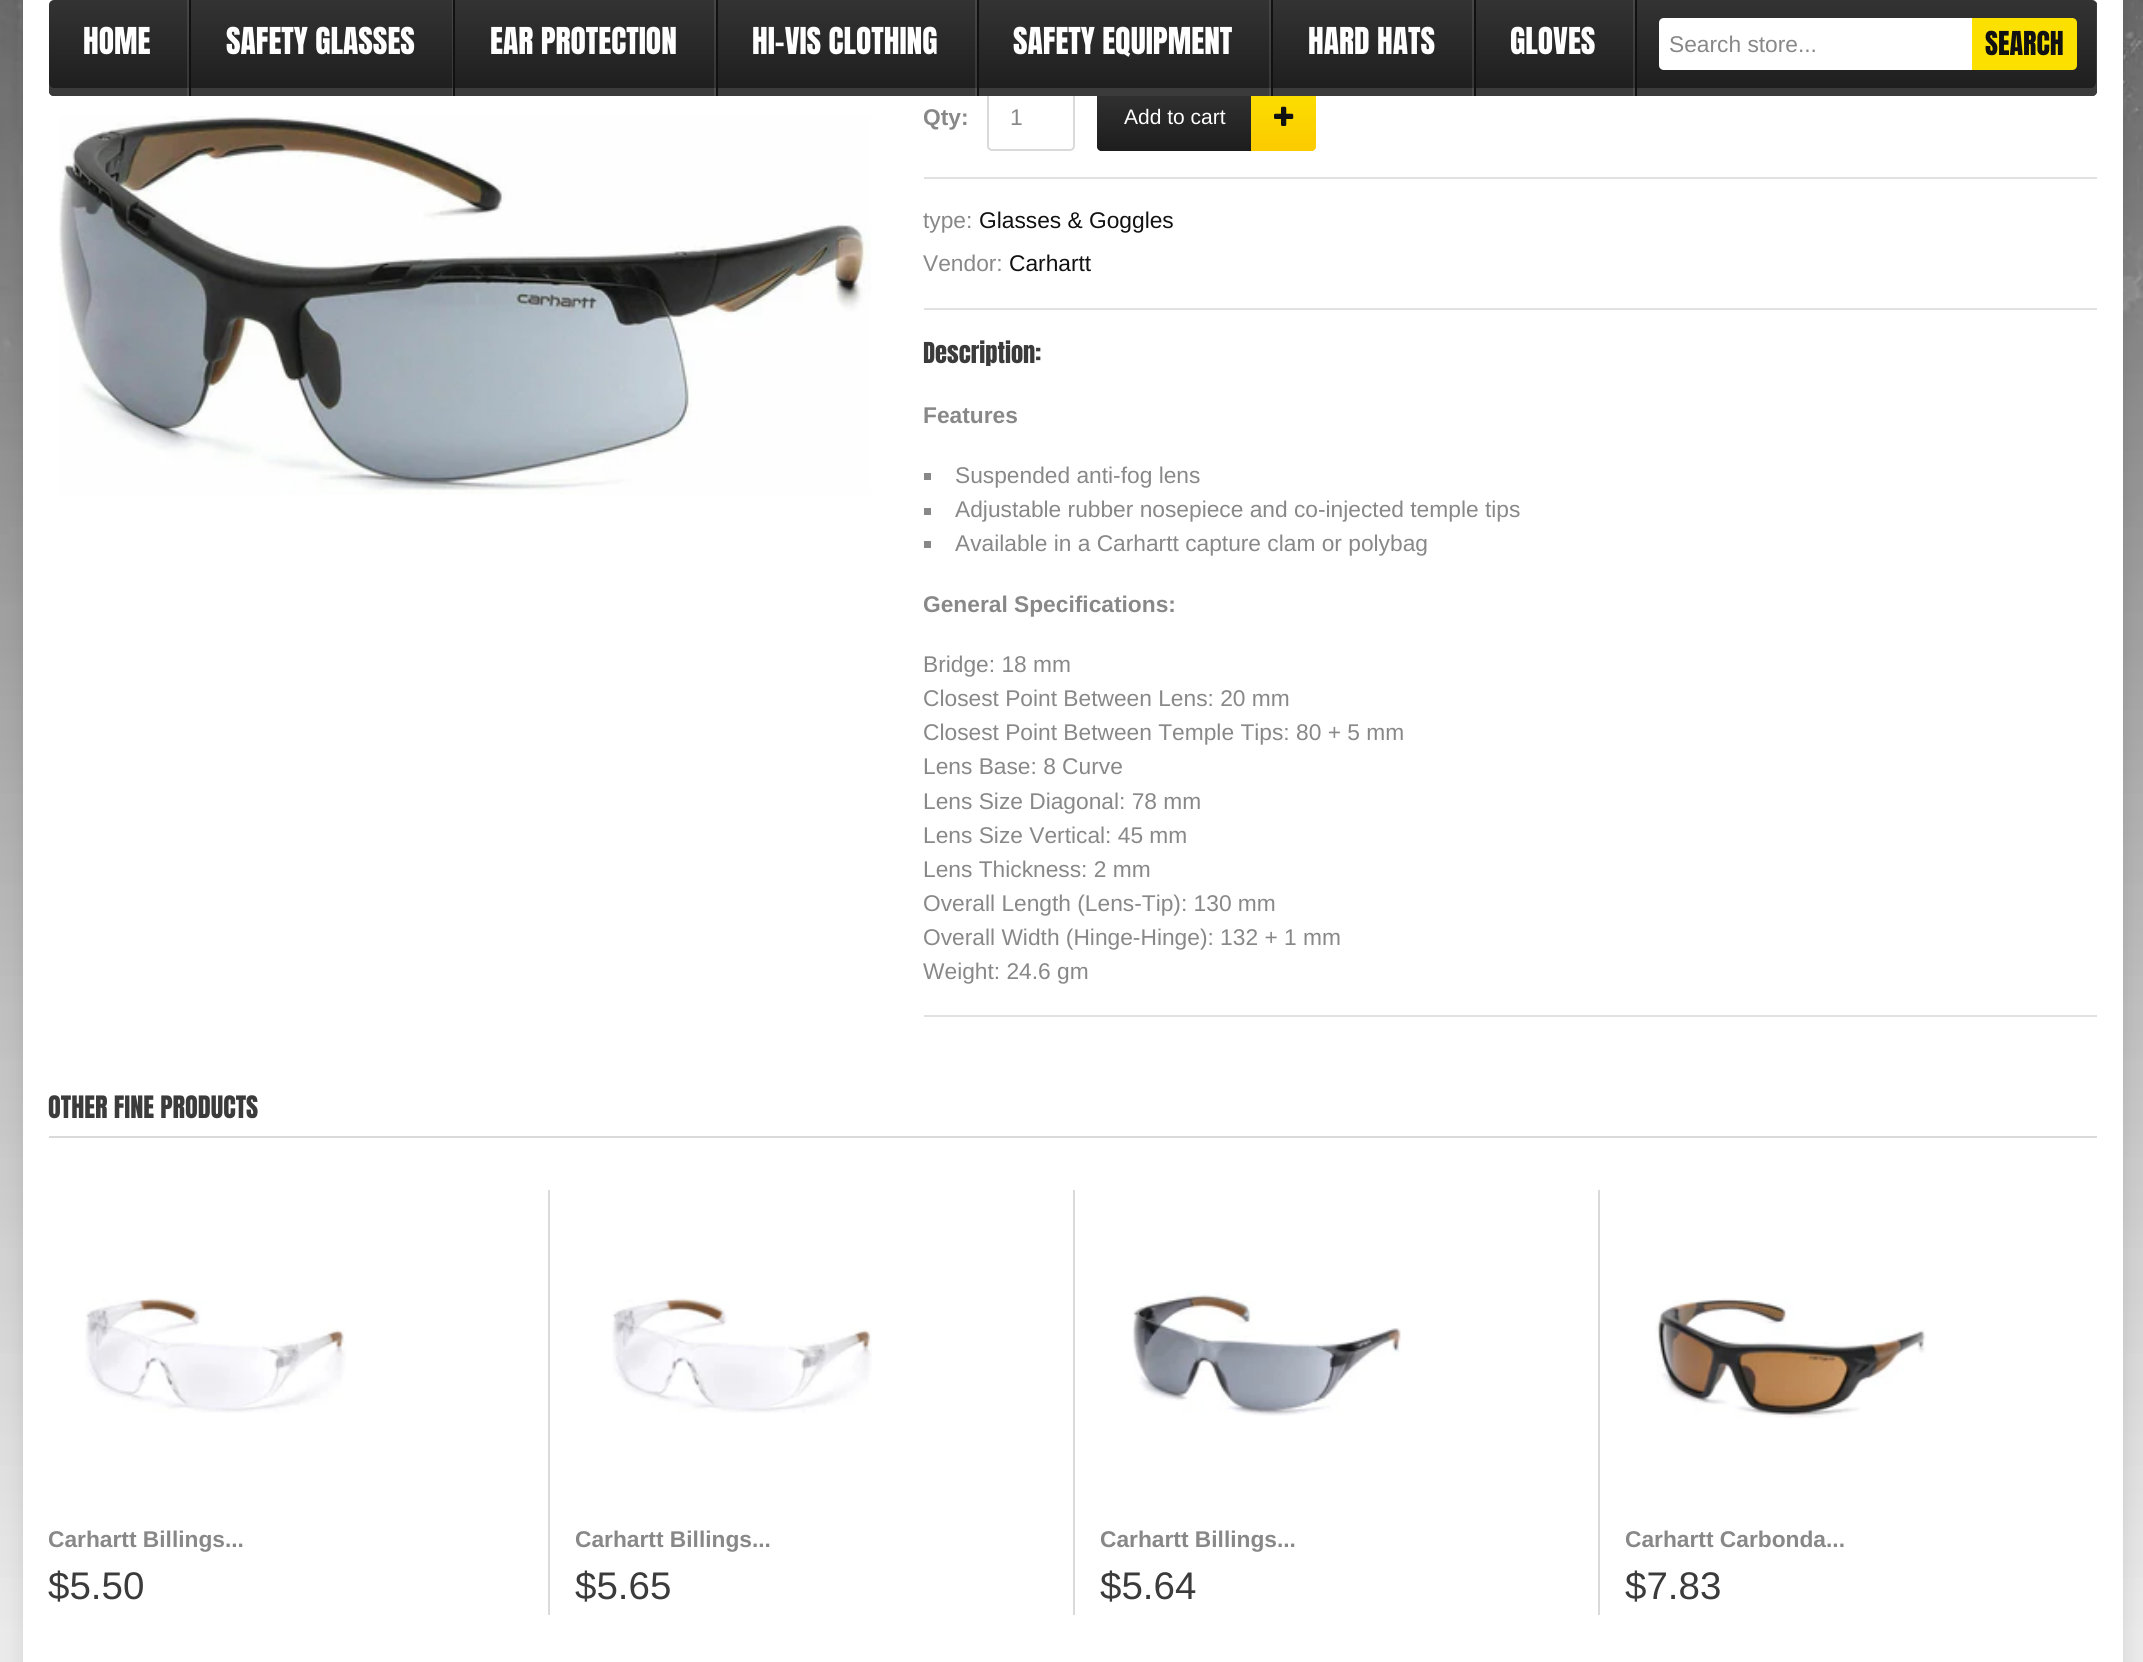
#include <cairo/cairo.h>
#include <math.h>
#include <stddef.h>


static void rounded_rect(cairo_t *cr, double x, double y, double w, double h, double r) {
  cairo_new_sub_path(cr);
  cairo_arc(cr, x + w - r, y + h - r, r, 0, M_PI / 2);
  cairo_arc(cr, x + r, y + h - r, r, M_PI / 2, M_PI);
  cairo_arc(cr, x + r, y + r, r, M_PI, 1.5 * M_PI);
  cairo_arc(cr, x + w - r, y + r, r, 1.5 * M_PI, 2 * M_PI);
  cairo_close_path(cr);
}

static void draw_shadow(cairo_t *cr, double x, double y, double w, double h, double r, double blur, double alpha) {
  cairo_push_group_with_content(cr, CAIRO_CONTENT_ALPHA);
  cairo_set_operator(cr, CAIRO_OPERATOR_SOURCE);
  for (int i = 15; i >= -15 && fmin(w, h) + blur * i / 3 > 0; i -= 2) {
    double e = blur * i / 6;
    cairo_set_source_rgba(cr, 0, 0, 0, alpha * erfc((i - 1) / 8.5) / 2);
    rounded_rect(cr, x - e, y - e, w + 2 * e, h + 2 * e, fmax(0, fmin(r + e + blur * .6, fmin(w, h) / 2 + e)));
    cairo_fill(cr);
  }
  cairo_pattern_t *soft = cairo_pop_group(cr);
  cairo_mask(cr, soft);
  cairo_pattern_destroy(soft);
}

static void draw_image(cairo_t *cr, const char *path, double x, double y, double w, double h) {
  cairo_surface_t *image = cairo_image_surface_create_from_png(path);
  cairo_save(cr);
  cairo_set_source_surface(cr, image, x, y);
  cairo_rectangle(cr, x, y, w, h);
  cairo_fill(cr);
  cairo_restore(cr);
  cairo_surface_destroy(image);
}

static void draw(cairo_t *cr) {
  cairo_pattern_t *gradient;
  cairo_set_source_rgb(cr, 1, 1, 1);
  cairo_paint(cr);
  draw_image(cr, "images/1.png", 0, 0, 2143, 1662);
  cairo_set_source_rgb(cr, 0, 0, 0);
  draw_shadow(cr, 23, -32, 2100, 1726, 5, 9, 0.1);
  cairo_set_source_rgb(cr, 1, 1, 1);
  cairo_rectangle(cr, 23, 0, 2100, 1662);
  cairo_fill(cr);
  rounded_rect(cr, 988, 87, 86, 63, 4);
  cairo_set_source_rgb(cr, 218 / 255.0, 218 / 255.0, 218 / 255.0);
  cairo_stroke(cr);
  gradient = cairo_pattern_create_linear(1207, 86, 1207, 151);
  cairo_pattern_add_color_stop_rgba(gradient, 0, 51 / 255.0, 51 / 255.0, 51 / 255.0, 1);
  cairo_pattern_add_color_stop_rgba(gradient, 1, 29 / 255.0, 29 / 255.0, 29 / 255.0, 1);
  cairo_set_source(cr, gradient);
  cairo_pattern_destroy(gradient);
  cairo_new_path(cr);
  cairo_move_to(cr, 1101, 86);
  cairo_line_to(cr, 1304, 86);
  cairo_curve_to(cr, 1310.5, 86, 1316, 91.5, 1316, 98);
  cairo_line_to(cr, 1316, 139);
  cairo_curve_to(cr, 1316, 145.5, 1310.5, 151, 1304, 151);
  cairo_line_to(cr, 1101, 151);
  cairo_curve_to(cr, 1099, 151, 1097, 149, 1097, 147);
  cairo_line_to(cr, 1097, 90);
  cairo_curve_to(cr, 1097, 88, 1099, 86, 1101, 86);
  cairo_close_path(cr);
  cairo_fill(cr);
  gradient = cairo_pattern_create_linear(1284, 86, 1284, 151);
  cairo_pattern_add_color_stop_rgba(gradient, 0, 252 / 255.0, 225 / 255.0, 0, 1);
  cairo_pattern_add_color_stop_rgba(gradient, 1, 252 / 255.0, 202 / 255.0, 0, 1);
  cairo_set_source(cr, gradient);
  cairo_pattern_destroy(gradient);
  cairo_new_path(cr);
  cairo_move_to(cr, 1251, 86);
  cairo_line_to(cr, 1312, 86);
  cairo_curve_to(cr, 1314, 86, 1316, 88, 1316, 90);
  cairo_line_to(cr, 1316, 147);
  cairo_curve_to(cr, 1316, 149, 1314, 151, 1312, 151);
  cairo_line_to(cr, 1251, 151);
  cairo_close_path(cr);
  cairo_fill(cr);
  gradient = cairo_pattern_create_linear(1073, 0, 1073, 96);
  cairo_pattern_add_color_stop_rgba(gradient, 0, 51 / 255.0, 51 / 255.0, 51 / 255.0, 1);
  cairo_pattern_add_color_stop_rgba(gradient, 1, 29 / 255.0, 29 / 255.0, 29 / 255.0, 1);
  cairo_set_source(cr, gradient);
  cairo_pattern_destroy(gradient);
  rounded_rect(cr, 49, 0, 2048, 96, 5);
  cairo_fill(cr);
  cairo_set_source_rgb(cr, 59 / 255.0, 59 / 255.0, 59 / 255.0);
  cairo_new_path(cr);
  cairo_move_to(cr, 49, 82);
  cairo_line_to(cr, 49, 91);
  cairo_curve_to(cr, 49, 94, 51, 96, 54, 96);
  cairo_line_to(cr, 2092, 96);
  cairo_curve_to(cr, 2095, 96, 2097, 94, 2097, 91);
  cairo_line_to(cr, 2097, 5);
  cairo_curve_to(cr, 2097, 4, 2097, 3, 2096, 2);
  cairo_line_to(cr, 2096, 82);
  cairo_curve_to(cr, 2096, 85, 2094, 88, 2091, 88);
  cairo_line_to(cr, 54, 88);
  cairo_curve_to(cr, 51, 88, 49, 85, 49, 82);
  cairo_close_path(cr);
  cairo_fill(cr);
  cairo_set_source_rgba(cr, 1, 1, 1, 0.1);
  cairo_rectangle(cr, 187, 0, 2, 96);
  cairo_fill(cr);
  cairo_set_source_rgb(cr, 17 / 255.0, 17 / 255.0, 17 / 255.0);
  cairo_rectangle(cr, 189, 0, 2, 96);
  cairo_fill(cr);
  cairo_set_source_rgba(cr, 1, 1, 1, 0.1);
  cairo_rectangle(cr, 452, 0, 1, 96);
  cairo_fill(cr);
  cairo_set_source_rgb(cr, 17 / 255.0, 17 / 255.0, 17 / 255.0);
  cairo_rectangle(cr, 453, 0, 2, 96);
  cairo_fill(cr);
  cairo_set_source_rgba(cr, 1, 1, 1, 0.1);
  cairo_rectangle(cr, 714, 0, 2, 96);
  cairo_fill(cr);
  cairo_set_source_rgb(cr, 17 / 255.0, 17 / 255.0, 17 / 255.0);
  cairo_rectangle(cr, 716, 0, 2, 96);
  cairo_fill(cr);
  cairo_set_source_rgba(cr, 1, 1, 1, 0.1);
  cairo_rectangle(cr, 975, 0, 2, 96);
  cairo_fill(cr);
  cairo_set_source_rgb(cr, 17 / 255.0, 17 / 255.0, 17 / 255.0);
  cairo_rectangle(cr, 977, 0, 2, 96);
  cairo_fill(cr);
  cairo_set_source_rgba(cr, 1, 1, 1, 0.1);
  cairo_rectangle(cr, 1269, 0, 2, 96);
  cairo_fill(cr);
  cairo_set_source_rgb(cr, 17 / 255.0, 17 / 255.0, 17 / 255.0);
  cairo_rectangle(cr, 1271, 0, 2, 96);
  cairo_fill(cr);
  cairo_set_source_rgba(cr, 1, 1, 1, 0.1);
  cairo_rectangle(cr, 1472, 0, 2, 96);
  cairo_fill(cr);
  cairo_set_source_rgb(cr, 17 / 255.0, 17 / 255.0, 17 / 255.0);
  cairo_rectangle(cr, 1474, 0, 2, 96);
  cairo_fill(cr);
  cairo_set_source_rgba(cr, 1, 1, 1, 0.1);
  cairo_rectangle(cr, 1633, 0, 2, 96);
  cairo_fill(cr);
  cairo_set_source_rgb(cr, 17 / 255.0, 17 / 255.0, 17 / 255.0);
  cairo_rectangle(cr, 1635, 0, 2, 96);
  cairo_fill(cr);
  cairo_set_source_rgb(cr, 1, 1, 1);
  cairo_new_path(cr);
  cairo_move_to(cr, 1664, 18);
  cairo_line_to(cr, 1972, 18);
  cairo_line_to(cr, 1972, 70);
  cairo_line_to(cr, 1664, 70);
  cairo_curve_to(cr, 1661, 70, 1659, 68, 1659, 65);
  cairo_line_to(cr, 1659, 23);
  cairo_curve_to(cr, 1659, 20, 1661, 18, 1664, 18);
  cairo_close_path(cr);
  cairo_fill(cr);
  cairo_set_source_rgb(cr, 252 / 255.0, 225 / 255.0, 0);
  cairo_new_path(cr);
  cairo_move_to(cr, 1972, 18);
  cairo_line_to(cr, 2072, 18);
  cairo_curve_to(cr, 2075, 18, 2077, 20, 2077, 23);
  cairo_line_to(cr, 2077, 65);
  cairo_curve_to(cr, 2077, 68, 2075, 70, 2072, 70);
  cairo_line_to(cr, 1972, 70);
  cairo_close_path(cr);
  cairo_fill(cr);
  draw_image(cr, "images/2.png", 59, 116, 812, 379);
  draw_image(cr, "images/3.png", 1274, 106, 20, 20);
  cairo_set_source_rgb(cr, 225 / 255.0, 225 / 255.0, 225 / 255.0);
  cairo_rectangle(cr, 924, 177, 1173, 2);
  cairo_fill(cr);
  cairo_rectangle(cr, 924, 308, 1173, 2);
  cairo_fill(cr);
  cairo_set_source_rgb(cr, 136 / 255.0, 136 / 255.0, 136 / 255.0);
  cairo_rectangle(cr, 924, 473, 7, 7);
  cairo_fill(cr);
  cairo_rectangle(cr, 924, 508, 7, 7);
  cairo_fill(cr);
  cairo_rectangle(cr, 924, 541, 7, 7);
  cairo_fill(cr);
  cairo_set_source_rgb(cr, 225 / 255.0, 225 / 255.0, 225 / 255.0);
  cairo_rectangle(cr, 924, 1015, 1173, 2);
  cairo_fill(cr);
  cairo_set_source_rgb(cr, 218 / 255.0, 218 / 255.0, 218 / 255.0);
  cairo_rectangle(cr, 49, 1136, 2048, 2);
  cairo_fill(cr);
  draw_image(cr, "images/4.png", 85, 1298, 261, 115);
  cairo_rectangle(cr, 548, 1190, 2, 425);
  cairo_fill(cr);
  draw_image(cr, "images/5.png", 612, 1298, 260, 115);
  cairo_rectangle(cr, 1073, 1190, 2, 425);
  cairo_fill(cr);
  draw_image(cr, "images/6.png", 1132, 1290, 269, 126);
  cairo_rectangle(cr, 1598, 1190, 2, 425);
  cairo_fill(cr);
  draw_image(cr, "images/7.png", 1655, 1298, 271, 120);
  cairo_select_font_face(cr, "Anton", CAIRO_FONT_SLANT_NORMAL, CAIRO_FONT_WEIGHT_NORMAL);
  cairo_set_font_size(cr, 31.5);
  cairo_set_source_rgb(cr, 1, 1, 1);
  cairo_move_to(cr, 83, 54);
  cairo_show_text(cr, "HOME");
  cairo_move_to(cr, 226, 54);
  cairo_show_text(cr, "SAFETY GLASSES");
  cairo_move_to(cr, 490, 54);
  cairo_show_text(cr, "EAR PROTECTION");
  cairo_move_to(cr, 752, 54);
  cairo_show_text(cr, "HI-VIS CLOTHING");
  cairo_move_to(cr, 1013, 54);
  cairo_show_text(cr, "SAFETY EQUIPMENT");
  cairo_move_to(cr, 1308, 54);
  cairo_show_text(cr, "HARD HATS");
  cairo_move_to(cr, 1510, 54);
  cairo_show_text(cr, "GLOVES");
  cairo_select_font_face(cr, "Liberation Sans", CAIRO_FONT_SLANT_NORMAL, CAIRO_FONT_WEIGHT_NORMAL);
  cairo_set_font_size(cr, 22.75);
  cairo_set_source_rgb(cr, 136 / 255.0, 136 / 255.0, 136 / 255.0);
  cairo_move_to(cr, 1669, 52);
  cairo_show_text(cr, "Search store...");
  cairo_select_font_face(cr, "Anton", CAIRO_FONT_SLANT_NORMAL, CAIRO_FONT_WEIGHT_NORMAL);
  cairo_set_font_size(cr, 28);
  cairo_set_source_rgb(cr, 17 / 255.0, 17 / 255.0, 17 / 255.0);
  cairo_move_to(cr, 1985, 55);
  cairo_show_text(cr, "SEARCH");
  cairo_select_font_face(cr, "Liberation Sans", CAIRO_FONT_SLANT_NORMAL, CAIRO_FONT_WEIGHT_BOLD);
  cairo_set_font_size(cr, 22.75);
  cairo_set_source_rgb(cr, 136 / 255.0, 136 / 255.0, 136 / 255.0);
  cairo_move_to(cr, 923, 125);
  cairo_show_text(cr, "Qty:");
  cairo_select_font_face(cr, "Liberation Sans", CAIRO_FONT_SLANT_NORMAL, CAIRO_FONT_WEIGHT_NORMAL);
  cairo_move_to(cr, 1010, 125);
  cairo_show_text(cr, "1");
  cairo_set_font_size(cr, 21);
  cairo_set_source_rgb(cr, 1, 1, 1);
  cairo_move_to(cr, 1124, 124);
  cairo_show_text(cr, "Add to cart");
  cairo_set_font_size(cr, 22.75);
  cairo_set_source_rgb(cr, 136 / 255.0, 136 / 255.0, 136 / 255.0);
  cairo_move_to(cr, 923, 228);
  cairo_show_text(cr, "type:");
  cairo_set_source_rgb(cr, 17 / 255.0, 17 / 255.0, 17 / 255.0);
  cairo_move_to(cr, 979, 228);
  cairo_show_text(cr, "Glasses & Goggles");
  cairo_set_source_rgb(cr, 136 / 255.0, 136 / 255.0, 136 / 255.0);
  cairo_move_to(cr, 923, 271);
  cairo_show_text(cr, "Vendor:");
  cairo_set_source_rgb(cr, 17 / 255.0, 17 / 255.0, 17 / 255.0);
  cairo_move_to(cr, 1009, 271);
  cairo_show_text(cr, "Carhartt");
  cairo_select_font_face(cr, "Anton", CAIRO_FONT_SLANT_NORMAL, CAIRO_FONT_WEIGHT_NORMAL);
  cairo_set_font_size(cr, 24.5);
  cairo_set_source_rgb(cr, 59 / 255.0, 59 / 255.0, 59 / 255.0);
  cairo_move_to(cr, 923, 363);
  cairo_show_text(cr, "Description:");
  cairo_select_font_face(cr, "Liberation Sans", CAIRO_FONT_SLANT_NORMAL, CAIRO_FONT_WEIGHT_BOLD);
  cairo_set_font_size(cr, 22.75);
  cairo_set_source_rgb(cr, 136 / 255.0, 136 / 255.0, 136 / 255.0);
  cairo_move_to(cr, 923, 423);
  cairo_show_text(cr, "Features");
  cairo_select_font_face(cr, "Liberation Sans", CAIRO_FONT_SLANT_NORMAL, CAIRO_FONT_WEIGHT_NORMAL);
  cairo_move_to(cr, 955, 483);
  cairo_show_text(cr, "Suspended anti-fog lens");
  cairo_move_to(cr, 955, 517);
  cairo_show_text(cr, "Adjustable rubber nosepiece and co-injected temple tips");
  cairo_move_to(cr, 955, 551);
  cairo_show_text(cr, "Available in a Carhartt capture clam or polybag");
  cairo_select_font_face(cr, "Liberation Sans", CAIRO_FONT_SLANT_NORMAL, CAIRO_FONT_WEIGHT_BOLD);
  cairo_move_to(cr, 923, 612);
  cairo_show_text(cr, "General Specifications:");
  cairo_select_font_face(cr, "Liberation Sans", CAIRO_FONT_SLANT_NORMAL, CAIRO_FONT_WEIGHT_NORMAL);
  cairo_move_to(cr, 923, 672);
  cairo_show_text(cr, "Bridge: 18 mm");
  cairo_move_to(cr, 923, 706);
  cairo_show_text(cr, "Closest Point Between Lens: 20 mm");
  cairo_move_to(cr, 923, 740);
  cairo_show_text(cr, "Closest Point Between Temple Tips: 80 + 5 mm");
  cairo_move_to(cr, 923, 774);
  cairo_show_text(cr, "Lens Base: 8 Curve");
  cairo_move_to(cr, 923, 809);
  cairo_show_text(cr, "Lens Size Diagonal: 78 mm");
  cairo_move_to(cr, 923, 843);
  cairo_show_text(cr, "Lens Size Vertical: 45 mm");
  cairo_move_to(cr, 923, 877);
  cairo_show_text(cr, "Lens Thickness: 2 mm");
  cairo_move_to(cr, 923, 911);
  cairo_show_text(cr, "Overall Length (Lens-Tip): 130 mm");
  cairo_move_to(cr, 923, 945);
  cairo_show_text(cr, "Overall Width (Hinge-Hinge): 132 + 1 mm");
  cairo_move_to(cr, 923, 979);
  cairo_show_text(cr, "Weight: 24.6 gm");
  cairo_select_font_face(cr, "Anton", CAIRO_FONT_SLANT_NORMAL, CAIRO_FONT_WEIGHT_NORMAL);
  cairo_set_font_size(cr, 26.25);
  cairo_set_source_rgb(cr, 59 / 255.0, 59 / 255.0, 59 / 255.0);
  cairo_move_to(cr, 48, 1118);
  cairo_show_text(cr, "OTHER FINE PRODUCTS");
  cairo_select_font_face(cr, "Liberation Sans", CAIRO_FONT_SLANT_NORMAL, CAIRO_FONT_WEIGHT_BOLD);
  cairo_set_font_size(cr, 22.75);
  cairo_set_source_rgb(cr, 136 / 255.0, 136 / 255.0, 136 / 255.0);
  cairo_move_to(cr, 48, 1547);
  cairo_show_text(cr, "Carhartt Billings...");
  cairo_select_font_face(cr, "Liberation Sans", CAIRO_FONT_SLANT_NORMAL, CAIRO_FONT_WEIGHT_NORMAL);
  cairo_set_font_size(cr, 38.5);
  cairo_set_source_rgb(cr, 59 / 255.0, 59 / 255.0, 59 / 255.0);
  cairo_move_to(cr, 48, 1599);
  cairo_show_text(cr, "$5.50");
  cairo_select_font_face(cr, "Liberation Sans", CAIRO_FONT_SLANT_NORMAL, CAIRO_FONT_WEIGHT_BOLD);
  cairo_set_font_size(cr, 22.75);
  cairo_set_source_rgb(cr, 136 / 255.0, 136 / 255.0, 136 / 255.0);
  cairo_move_to(cr, 575, 1547);
  cairo_show_text(cr, "Carhartt Billings...");
  cairo_select_font_face(cr, "Liberation Sans", CAIRO_FONT_SLANT_NORMAL, CAIRO_FONT_WEIGHT_NORMAL);
  cairo_set_font_size(cr, 38.5);
  cairo_set_source_rgb(cr, 59 / 255.0, 59 / 255.0, 59 / 255.0);
  cairo_move_to(cr, 575, 1599);
  cairo_show_text(cr, "$5.65");
  cairo_select_font_face(cr, "Liberation Sans", CAIRO_FONT_SLANT_NORMAL, CAIRO_FONT_WEIGHT_BOLD);
  cairo_set_font_size(cr, 22.75);
  cairo_set_source_rgb(cr, 136 / 255.0, 136 / 255.0, 136 / 255.0);
  cairo_move_to(cr, 1100, 1547);
  cairo_show_text(cr, "Carhartt Billings...");
  cairo_select_font_face(cr, "Liberation Sans", CAIRO_FONT_SLANT_NORMAL, CAIRO_FONT_WEIGHT_NORMAL);
  cairo_set_font_size(cr, 38.5);
  cairo_set_source_rgb(cr, 59 / 255.0, 59 / 255.0, 59 / 255.0);
  cairo_move_to(cr, 1100, 1599);
  cairo_show_text(cr, "$5.64");
  cairo_select_font_face(cr, "Liberation Sans", CAIRO_FONT_SLANT_NORMAL, CAIRO_FONT_WEIGHT_BOLD);
  cairo_set_font_size(cr, 22.75);
  cairo_set_source_rgb(cr, 136 / 255.0, 136 / 255.0, 136 / 255.0);
  cairo_move_to(cr, 1625, 1547);
  cairo_show_text(cr, "Carhartt Carbonda...");
  cairo_select_font_face(cr, "Liberation Sans", CAIRO_FONT_SLANT_NORMAL, CAIRO_FONT_WEIGHT_NORMAL);
  cairo_set_font_size(cr, 38.5);
  cairo_set_source_rgb(cr, 59 / 255.0, 59 / 255.0, 59 / 255.0);
  cairo_move_to(cr, 1625, 1599);
  cairo_show_text(cr, "$7.83");
}

int main(void) {
  cairo_surface_t *surface = cairo_image_surface_create(CAIRO_FORMAT_RGB24, 2143, 1662);
  cairo_t *cr = cairo_create(surface);
  cairo_font_options_t *options = cairo_font_options_create();
  cairo_font_options_set_hint_metrics(options, CAIRO_HINT_METRICS_OFF);
  cairo_font_options_set_hint_style(options, CAIRO_HINT_STYLE_NONE);
  cairo_set_font_options(cr, options);
  cairo_set_miter_limit(cr, 4);
  draw(cr);
  cairo_surface_write_to_png(surface, "out.png");
  cairo_font_options_destroy(options);
  cairo_destroy(cr);
  cairo_surface_destroy(surface);
  return 0;
}
